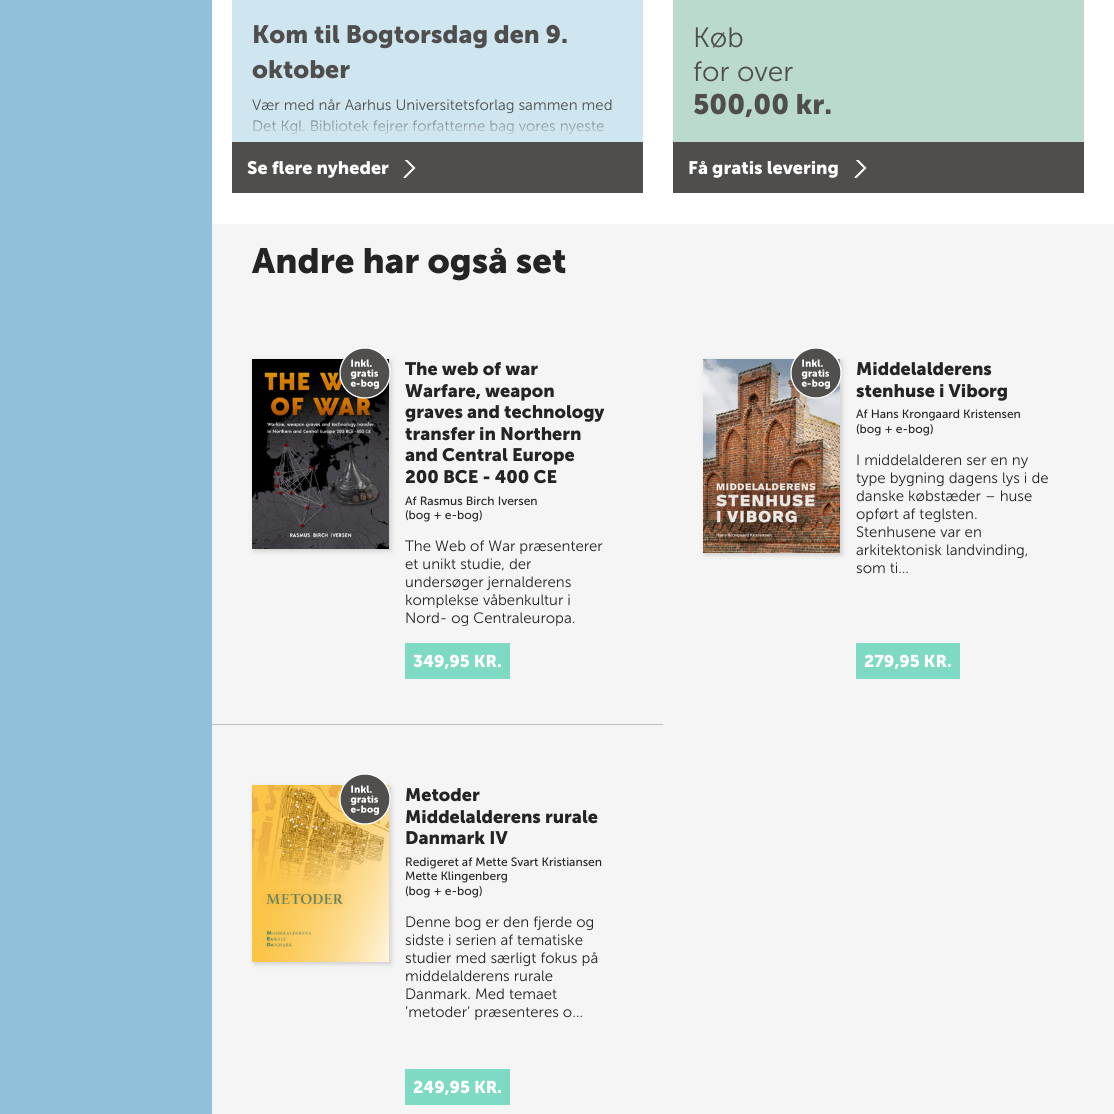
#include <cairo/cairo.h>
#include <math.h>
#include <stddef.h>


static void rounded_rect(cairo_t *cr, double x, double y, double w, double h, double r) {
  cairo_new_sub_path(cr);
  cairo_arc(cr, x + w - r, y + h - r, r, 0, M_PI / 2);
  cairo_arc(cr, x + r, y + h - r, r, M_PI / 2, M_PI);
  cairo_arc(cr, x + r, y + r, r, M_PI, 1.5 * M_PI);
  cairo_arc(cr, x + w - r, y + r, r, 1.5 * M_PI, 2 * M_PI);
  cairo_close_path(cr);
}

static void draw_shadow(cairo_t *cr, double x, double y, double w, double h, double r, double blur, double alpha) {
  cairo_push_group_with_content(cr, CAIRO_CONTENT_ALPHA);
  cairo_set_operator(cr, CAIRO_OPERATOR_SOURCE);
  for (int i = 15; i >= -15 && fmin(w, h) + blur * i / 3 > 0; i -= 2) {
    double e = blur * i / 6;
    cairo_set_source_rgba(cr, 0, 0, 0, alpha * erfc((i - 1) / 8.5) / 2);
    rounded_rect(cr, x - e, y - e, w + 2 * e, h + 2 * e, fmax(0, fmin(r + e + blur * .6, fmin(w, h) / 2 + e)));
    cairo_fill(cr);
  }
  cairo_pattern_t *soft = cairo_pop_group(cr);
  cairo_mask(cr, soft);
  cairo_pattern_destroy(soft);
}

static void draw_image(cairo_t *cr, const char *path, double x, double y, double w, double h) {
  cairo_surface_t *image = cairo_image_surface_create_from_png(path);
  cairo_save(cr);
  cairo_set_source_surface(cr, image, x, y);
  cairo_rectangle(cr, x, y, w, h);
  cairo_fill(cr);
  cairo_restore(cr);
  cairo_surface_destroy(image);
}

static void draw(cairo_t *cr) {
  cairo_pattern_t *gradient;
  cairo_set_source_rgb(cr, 1, 1, 1);
  cairo_paint(cr);
  cairo_set_source_rgb(cr, 144 / 255.0, 192 / 255.0, 218 / 255.0);
  cairo_rectangle(cr, 0, 0, 212, 1114);
  cairo_fill(cr);
  cairo_set_source_rgb(cr, 207 / 255.0, 230 / 255.0, 241 / 255.0);
  cairo_rectangle(cr, 232, 0, 411, 139);
  cairo_fill(cr);
  cairo_set_source_rgb(cr, 79 / 255.0, 78 / 255.0, 76 / 255.0);
  cairo_rectangle(cr, 232, 142, 411, 51);
  cairo_fill(cr);
  draw_image(cr, "images/1.png", 403, 160, 13, 18);
  cairo_set_source_rgb(cr, 186 / 255.0, 218 / 255.0, 205 / 255.0);
  cairo_rectangle(cr, 673, 0, 411, 142);
  cairo_fill(cr);
  cairo_set_source_rgb(cr, 79 / 255.0, 78 / 255.0, 76 / 255.0);
  cairo_rectangle(cr, 673, 142, 411, 51);
  cairo_fill(cr);
  draw_image(cr, "images/1.png", 854, 160, 13, 18);
  cairo_set_source_rgb(cr, 245 / 255.0, 245 / 255.0, 245 / 255.0);
  cairo_rectangle(cr, 212, 224, 902, 890);
  cairo_fill(cr);
  cairo_set_source_rgb(cr, 204 / 255.0, 204 / 255.0, 204 / 255.0);
  draw_shadow(cr, 254, 361, 137, 190, 0, 2.5, 1);
  draw_image(cr, "images/3.png", 252, 359, 137, 190);
  draw_image(cr, "images/2.png", 339, 347, 52, 52);
  cairo_set_source_rgb(cr, 126 / 255.0, 218 / 255.0, 194 / 255.0);
  cairo_rectangle(cr, 405, 643, 105, 36);
  cairo_fill(cr);
  cairo_set_source_rgb(cr, 204 / 255.0, 204 / 255.0, 204 / 255.0);
  draw_shadow(cr, 705, 361, 137, 194, 0, 2.5, 1);
  draw_image(cr, "images/5.png", 703, 359, 137, 194);
  draw_image(cr, "images/4.png", 790, 347, 52, 52);
  cairo_set_source_rgb(cr, 126 / 255.0, 218 / 255.0, 194 / 255.0);
  cairo_rectangle(cr, 856, 643, 104, 36);
  cairo_fill(cr);
  cairo_set_source_rgb(cr, 193 / 255.0, 193 / 255.0, 193 / 255.0);
  cairo_rectangle(cr, 212, 724, 451, 1);
  cairo_fill(cr);
  cairo_set_source_rgb(cr, 204 / 255.0, 204 / 255.0, 204 / 255.0);
  draw_shadow(cr, 254, 787, 137, 177, 0, 2.5, 1);
  draw_image(cr, "images/7.png", 252, 785, 137, 177);
  draw_image(cr, "images/6.png", 339, 773, 52, 52);
  cairo_set_source_rgb(cr, 126 / 255.0, 218 / 255.0, 194 / 255.0);
  cairo_rectangle(cr, 405, 1069, 105, 36);
  cairo_fill(cr);
  cairo_select_font_face(cr, "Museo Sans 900", CAIRO_FONT_SLANT_NORMAL, CAIRO_FONT_WEIGHT_BOLD);
  cairo_set_font_size(cr, 25);
  cairo_set_source_rgb(cr, 79 / 255.0, 78 / 255.0, 76 / 255.0);
  cairo_move_to(cr, 252, 43);
  cairo_show_text(cr, "Kom til Bogtorsdag den 9.");
  cairo_move_to(cr, 252, 78);
  cairo_show_text(cr, "oktober");
  cairo_select_font_face(cr, "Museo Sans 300 Light", CAIRO_FONT_SLANT_NORMAL, CAIRO_FONT_WEIGHT_NORMAL);
  cairo_set_font_size(cr, 15);
  cairo_move_to(cr, 252, 110);
  cairo_show_text(cr, "Vær med når Aarhus Universitetsforlag sammen med");
  cairo_move_to(cr, 252, 131);
  cairo_show_text(cr, "Det Kgl. Bibliotek fejrer forfatterne bag vores nyeste");
  gradient = cairo_pattern_create_linear(438, 142, 438, 112);
  cairo_pattern_add_color_stop_rgba(gradient, 0.1, 207 / 255.0, 230 / 255.0, 241 / 255.0, 1);
  cairo_pattern_add_color_stop_rgba(gradient, 1, 207 / 255.0, 230 / 255.0, 241 / 255.0, 0);
  cairo_set_source(cr, gradient);
  cairo_pattern_destroy(gradient);
  cairo_rectangle(cr, 232, 120, 411, 22);
  cairo_fill(cr);
  cairo_select_font_face(cr, "Museo Sans 900", CAIRO_FONT_SLANT_NORMAL, CAIRO_FONT_WEIGHT_BOLD);
  cairo_set_font_size(cr, 18);
  cairo_set_source_rgb(cr, 1, 1, 1);
  cairo_move_to(cr, 247, 174);
  cairo_show_text(cr, "Se flere nyheder");
  cairo_select_font_face(cr, "Museo Sans 300 Light", CAIRO_FONT_SLANT_NORMAL, CAIRO_FONT_WEIGHT_NORMAL);
  cairo_set_font_size(cr, 28);
  cairo_set_source_rgb(cr, 79 / 255.0, 78 / 255.0, 76 / 255.0);
  cairo_move_to(cr, 693, 47);
  cairo_show_text(cr, "Køb");
  cairo_move_to(cr, 693, 81);
  cairo_show_text(cr, "for over");
  cairo_select_font_face(cr, "Museo Sans 900", CAIRO_FONT_SLANT_NORMAL, CAIRO_FONT_WEIGHT_BOLD);
  cairo_move_to(cr, 693, 114);
  cairo_show_text(cr, "500,00 kr.");
  cairo_set_font_size(cr, 18);
  cairo_set_source_rgb(cr, 1, 1, 1);
  cairo_move_to(cr, 688, 174);
  cairo_show_text(cr, "Få gratis levering");
  cairo_set_font_size(cr, 35);
  cairo_set_source_rgb(cr, 36 / 255.0, 36 / 255.0, 36 / 255.0);
  cairo_move_to(cr, 252, 273);
  cairo_show_text(cr, "Andre har også set");
  cairo_set_font_size(cr, 18);
  cairo_move_to(cr, 405, 375);
  cairo_show_text(cr, "The web of war");
  cairo_move_to(cr, 405, 397);
  cairo_show_text(cr, "Warfare, weapon");
  cairo_move_to(cr, 405, 418);
  cairo_show_text(cr, "graves and technology");
  cairo_move_to(cr, 405, 440);
  cairo_show_text(cr, "transfer in Northern");
  cairo_move_to(cr, 405, 461);
  cairo_show_text(cr, "and Central Europe");
  cairo_move_to(cr, 405, 483);
  cairo_show_text(cr, "200 BCE - 400 CE");
  cairo_select_font_face(cr, "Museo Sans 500", CAIRO_FONT_SLANT_NORMAL, CAIRO_FONT_WEIGHT_NORMAL);
  cairo_set_font_size(cr, 12);
  cairo_move_to(cr, 405, 505);
  cairo_show_text(cr, "Af Rasmus Birch Iversen");
  cairo_move_to(cr, 405, 519);
  cairo_show_text(cr, "(bog + e-bog)");
  cairo_select_font_face(cr, "Museo Sans 300 Light", CAIRO_FONT_SLANT_NORMAL, CAIRO_FONT_WEIGHT_NORMAL);
  cairo_set_font_size(cr, 15);
  cairo_move_to(cr, 405, 551);
  cairo_show_text(cr, "The Web of War præsenterer");
  cairo_move_to(cr, 405, 569);
  cairo_show_text(cr, "et unikt studie, der");
  cairo_move_to(cr, 405, 587);
  cairo_show_text(cr, "undersøger jernalderens");
  cairo_move_to(cr, 405, 605);
  cairo_show_text(cr, "komplekse våbenkultur i");
  cairo_move_to(cr, 405, 623);
  cairo_show_text(cr, "Nord- og Centraleuropa.");
  gradient = cairo_pattern_create_linear(505, 679, 505, 623);
  cairo_pattern_add_color_stop_rgba(gradient, 0.8, 245 / 255.0, 245 / 255.0, 245 / 255.0, 1);
  cairo_pattern_add_color_stop_rgba(gradient, 1, 245 / 255.0, 245 / 255.0, 245 / 255.0, 0);
  cairo_set_source(cr, gradient);
  cairo_pattern_destroy(gradient);
  cairo_rectangle(cr, 462, 623, 96, 4);
  cairo_fill(cr);
  cairo_select_font_face(cr, "Museo Sans 900", CAIRO_FONT_SLANT_NORMAL, CAIRO_FONT_WEIGHT_BOLD);
  cairo_set_font_size(cr, 17);
  cairo_set_source_rgb(cr, 1, 1, 1);
  cairo_move_to(cr, 413, 667);
  cairo_show_text(cr, "349,95 KR.");
  cairo_set_font_size(cr, 18);
  cairo_set_source_rgb(cr, 36 / 255.0, 36 / 255.0, 36 / 255.0);
  cairo_move_to(cr, 856, 375);
  cairo_show_text(cr, "Middelalderens");
  cairo_move_to(cr, 856, 397);
  cairo_show_text(cr, "stenhuse i Viborg");
  cairo_select_font_face(cr, "Museo Sans 500", CAIRO_FONT_SLANT_NORMAL, CAIRO_FONT_WEIGHT_NORMAL);
  cairo_set_font_size(cr, 12);
  cairo_move_to(cr, 856, 418);
  cairo_show_text(cr, "Af Hans Krongaard Kristensen");
  cairo_move_to(cr, 856, 433);
  cairo_show_text(cr, "(bog + e-bog)");
  cairo_select_font_face(cr, "Museo Sans 300 Light", CAIRO_FONT_SLANT_NORMAL, CAIRO_FONT_WEIGHT_NORMAL);
  cairo_set_font_size(cr, 15);
  cairo_move_to(cr, 856, 465);
  cairo_show_text(cr, "I middelalderen ser en ny");
  cairo_move_to(cr, 856, 483);
  cairo_show_text(cr, "type bygning dagens lys i de");
  cairo_move_to(cr, 856, 501);
  cairo_show_text(cr, "danske købstæder – huse");
  cairo_move_to(cr, 856, 519);
  cairo_show_text(cr, "opført af teglsten.");
  cairo_move_to(cr, 856, 537);
  cairo_show_text(cr, "Stenhusene var en");
  cairo_move_to(cr, 856, 555);
  cairo_show_text(cr, "arkitektonisk landvinding,");
  cairo_move_to(cr, 856, 573);
  cairo_show_text(cr, "som ti…");
  cairo_select_font_face(cr, "Museo Sans 900", CAIRO_FONT_SLANT_NORMAL, CAIRO_FONT_WEIGHT_BOLD);
  cairo_set_font_size(cr, 17);
  cairo_set_source_rgb(cr, 1, 1, 1);
  cairo_move_to(cr, 864, 667);
  cairo_show_text(cr, "279,95 KR.");
  cairo_set_font_size(cr, 18);
  cairo_set_source_rgb(cr, 36 / 255.0, 36 / 255.0, 36 / 255.0);
  cairo_move_to(cr, 405, 801);
  cairo_show_text(cr, "Metoder");
  cairo_move_to(cr, 405, 823);
  cairo_show_text(cr, "Middelalderens rurale");
  cairo_move_to(cr, 405, 844);
  cairo_show_text(cr, "Danmark IV");
  cairo_select_font_face(cr, "Museo Sans 500", CAIRO_FONT_SLANT_NORMAL, CAIRO_FONT_WEIGHT_NORMAL);
  cairo_set_font_size(cr, 12);
  cairo_move_to(cr, 405, 866);
  cairo_show_text(cr, "Redigeret af Mette Svart Kristiansen");
  cairo_move_to(cr, 405, 880);
  cairo_show_text(cr, "Mette Klingenberg");
  cairo_move_to(cr, 405, 895);
  cairo_show_text(cr, "(bog + e-bog)");
  cairo_select_font_face(cr, "Museo Sans 300 Light", CAIRO_FONT_SLANT_NORMAL, CAIRO_FONT_WEIGHT_NORMAL);
  cairo_set_font_size(cr, 15);
  cairo_move_to(cr, 405, 927);
  cairo_show_text(cr, "Denne bog er den fjerde og");
  cairo_move_to(cr, 405, 945);
  cairo_show_text(cr, "sidste i serien af tematiske");
  cairo_move_to(cr, 405, 963);
  cairo_show_text(cr, "studier med særligt fokus på");
  cairo_move_to(cr, 405, 981);
  cairo_show_text(cr, "middelalderens rurale");
  cairo_move_to(cr, 405, 999);
  cairo_show_text(cr, "Danmark. Med temaet");
  cairo_move_to(cr, 405, 1017);
  cairo_show_text(cr, "’metoder’ præsenteres o…");
  cairo_select_font_face(cr, "Museo Sans 900", CAIRO_FONT_SLANT_NORMAL, CAIRO_FONT_WEIGHT_BOLD);
  cairo_set_font_size(cr, 17);
  cairo_set_source_rgb(cr, 1, 1, 1);
  cairo_move_to(cr, 413, 1093);
  cairo_show_text(cr, "249,95 KR.");
}

int main(void) {
  cairo_surface_t *surface = cairo_image_surface_create(CAIRO_FORMAT_RGB24, 1114, 1114);
  cairo_t *cr = cairo_create(surface);
  cairo_font_options_t *options = cairo_font_options_create();
  cairo_font_options_set_hint_metrics(options, CAIRO_HINT_METRICS_OFF);
  cairo_font_options_set_hint_style(options, CAIRO_HINT_STYLE_NONE);
  cairo_set_font_options(cr, options);
  cairo_set_miter_limit(cr, 4);
  draw(cr);
  cairo_surface_write_to_png(surface, "out.png");
  cairo_font_options_destroy(options);
  cairo_destroy(cr);
  cairo_surface_destroy(surface);
  return 0;
}
